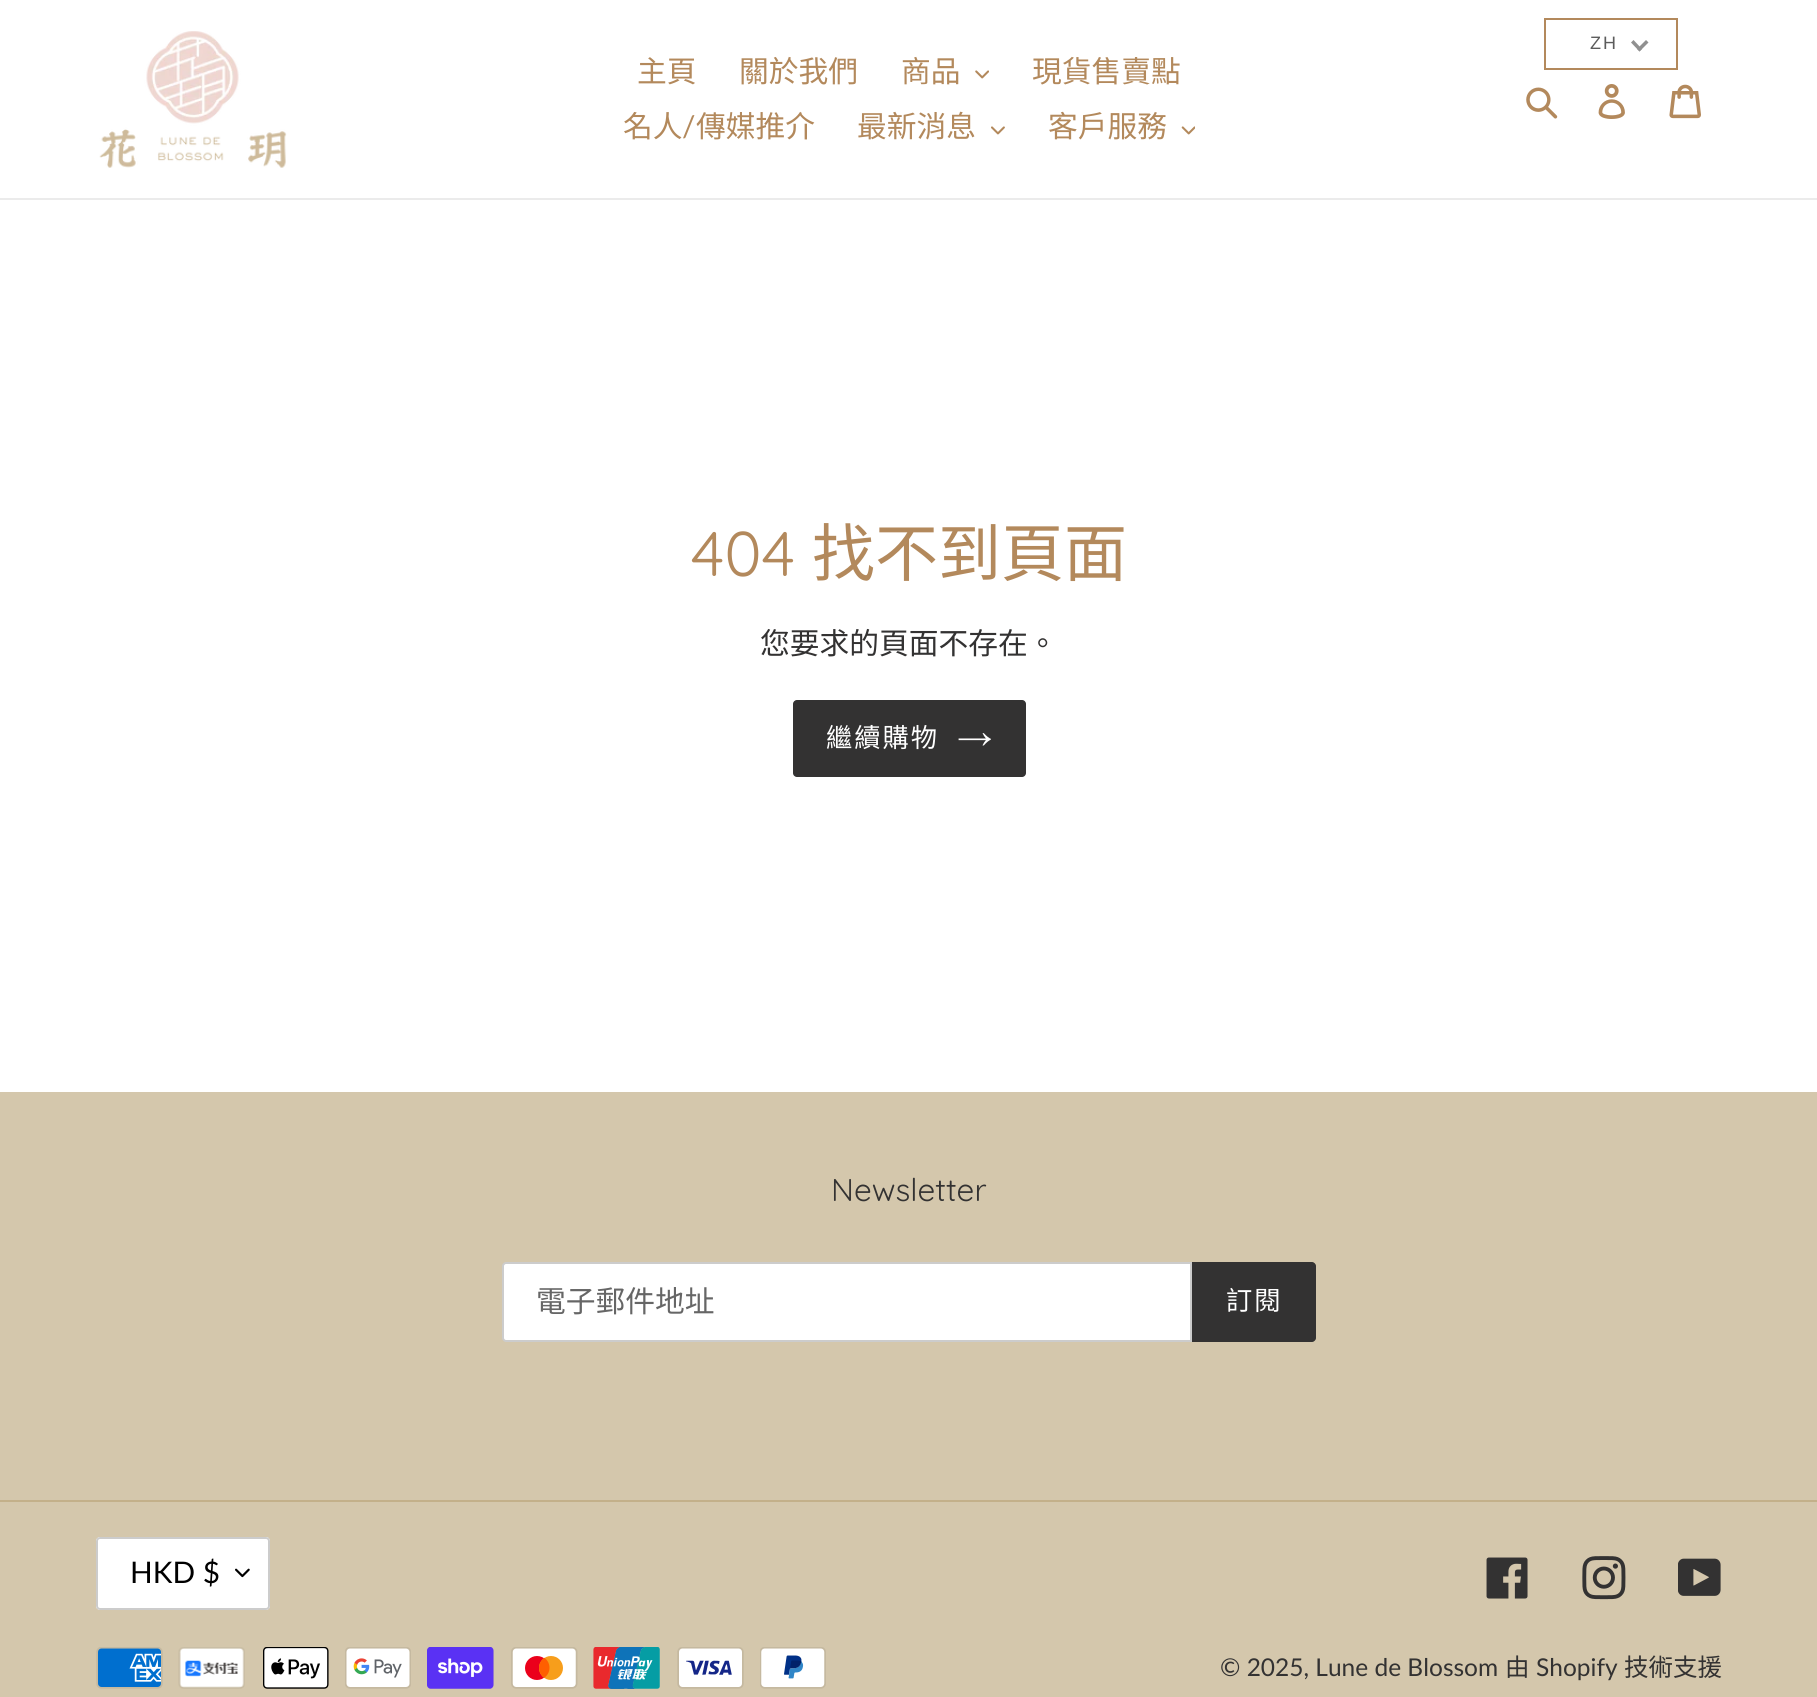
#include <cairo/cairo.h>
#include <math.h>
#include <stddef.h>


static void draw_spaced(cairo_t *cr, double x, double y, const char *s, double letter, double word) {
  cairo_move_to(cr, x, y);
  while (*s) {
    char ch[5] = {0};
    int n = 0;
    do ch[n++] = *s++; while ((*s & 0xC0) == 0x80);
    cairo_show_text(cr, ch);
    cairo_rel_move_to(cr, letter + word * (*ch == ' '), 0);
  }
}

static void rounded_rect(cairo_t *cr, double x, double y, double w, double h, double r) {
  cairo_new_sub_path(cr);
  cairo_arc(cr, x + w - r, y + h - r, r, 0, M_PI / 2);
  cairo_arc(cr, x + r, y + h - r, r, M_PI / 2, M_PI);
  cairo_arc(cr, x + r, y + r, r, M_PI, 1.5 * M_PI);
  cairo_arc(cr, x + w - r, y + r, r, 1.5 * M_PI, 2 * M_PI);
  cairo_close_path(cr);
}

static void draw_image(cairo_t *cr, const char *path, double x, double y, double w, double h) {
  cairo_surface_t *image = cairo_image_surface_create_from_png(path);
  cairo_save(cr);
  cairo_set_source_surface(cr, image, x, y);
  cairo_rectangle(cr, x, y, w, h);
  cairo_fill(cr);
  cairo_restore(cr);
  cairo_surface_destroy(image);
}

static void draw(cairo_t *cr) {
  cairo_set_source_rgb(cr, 1, 1, 1);
  cairo_paint(cr);
  cairo_rectangle(cr, 1545, 19, 132, 50);
  cairo_set_source_rgb(cr, 179 / 255.0, 137 / 255.0, 92 / 255.0);
  cairo_stroke(cr);
  cairo_set_source_rgb(cr, 144 / 255.0, 144 / 255.0, 144 / 255.0);
  cairo_new_path(cr);
  cairo_move_to(cr, 1646, 40);
  cairo_line_to(cr, 1648.5, 42.5);
  cairo_line_to(cr, 1639.5, 51.5);
  cairo_line_to(cr, 1637, 49);
  cairo_close_path(cr);
  cairo_fill(cr);
  cairo_new_path(cr);
  cairo_move_to(cr, 1633.5, 40);
  cairo_line_to(cr, 1642, 49);
  cairo_line_to(cr, 1639.5, 51.5);
  cairo_line_to(cr, 1631, 42.5);
  cairo_close_path(cr);
  cairo_fill(cr);
  cairo_set_source_rgb(cr, 235 / 255.0, 235 / 255.0, 235 / 255.0);
  cairo_rectangle(cr, 0, 198, 1817, 2);
  cairo_fill(cr);
  draw_image(cr, "images/1.png", 99, 31, 188, 137);
  draw_image(cr, "images/2.png", 975, 70, 14, 9);
  draw_image(cr, "images/3.png", 991, 126, 14, 9);
  draw_image(cr, "images/4.png", 1181, 126, 14, 9);
  draw_image(cr, "images/5.png", 1526, 87, 32, 32);
  draw_image(cr, "images/6.png", 1598, 84, 27, 35);
  draw_image(cr, "images/7.png", 1669, 84, 32, 35);
  cairo_set_source_rgb(cr, 51 / 255.0, 50 / 255.0, 50 / 255.0);
  rounded_rect(cr, 793, 700, 233, 77, 4);
  cairo_fill(cr);
  draw_image(cr, "images/8.png", 958, 733, 33, 13);
  cairo_set_source_rgb(cr, 212 / 255.0, 199 / 255.0, 172 / 255.0);
  cairo_rectangle(cr, 0, 1092, 1817, 605);
  cairo_fill(cr);
  cairo_set_source_rgb(cr, 1, 1, 1);
  cairo_new_path(cr);
  cairo_move_to(cr, 506, 1263);
  cairo_line_to(cr, 1191, 1263);
  cairo_line_to(cr, 1191, 1341);
  cairo_line_to(cr, 506, 1341);
  cairo_curve_to(cr, 504.5, 1341, 503, 1339.5, 503, 1338);
  cairo_line_to(cr, 503, 1266);
  cairo_curve_to(cr, 503, 1264.5, 504.5, 1263, 506, 1263);
  cairo_close_path(cr);
  cairo_fill_preserve(cr);
  cairo_set_source_rgb(cr, 204 / 255.0, 204 / 255.0, 204 / 255.0);
  cairo_stroke(cr);
  cairo_set_source_rgb(cr, 51 / 255.0, 50 / 255.0, 50 / 255.0);
  cairo_new_path(cr);
  cairo_move_to(cr, 1192, 1262);
  cairo_line_to(cr, 1312, 1262);
  cairo_curve_to(cr, 1314, 1262, 1316, 1264, 1316, 1266);
  cairo_line_to(cr, 1316, 1338);
  cairo_curve_to(cr, 1316, 1340, 1314, 1342, 1312, 1342);
  cairo_line_to(cr, 1192, 1342);
  cairo_close_path(cr);
  cairo_fill(cr);
  cairo_set_source_rgb(cr, 195 / 255.0, 176 / 255.0, 138 / 255.0);
  cairo_rectangle(cr, 0, 1500, 1817, 2);
  cairo_fill(cr);
  cairo_set_source_rgb(cr, 1, 1, 1);
  rounded_rect(cr, 96, 1537, 174, 73, 4);
  cairo_fill(cr);
  draw_image(cr, "images/9.png", 235, 1568, 15, 10);
  rounded_rect(cr, 97, 1538, 172, 71, 3);
  cairo_set_source_rgb(cr, 204 / 255.0, 204 / 255.0, 204 / 255.0);
  cairo_stroke(cr);
  draw_image(cr, "images/10.png", 1486, 1557, 42, 42);
  draw_image(cr, "images/11.png", 1582, 1556, 44, 44);
  draw_image(cr, "images/12.png", 1678, 1558, 43, 38);
  draw_image(cr, "images/13.png", 96, 1647, 67, 42);
  draw_image(cr, "images/14.png", 178, 1647, 67, 42);
  draw_image(cr, "images/15.png", 263, 1647, 66, 42);
  draw_image(cr, "images/16.png", 345, 1647, 66, 42);
  draw_image(cr, "images/17.png", 427, 1647, 67, 42);
  draw_image(cr, "images/18.png", 511, 1647, 67, 42);
  draw_image(cr, "images/19.png", 593, 1647, 67, 42);
  draw_image(cr, "images/20.png", 677, 1647, 67, 42);
  draw_image(cr, "images/21.png", 760, 1647, 66, 42);
  cairo_select_font_face(cr, "Liberation Sans", CAIRO_FONT_SLANT_NORMAL, CAIRO_FONT_WEIGHT_NORMAL);
  cairo_set_font_size(cr, 18);
  cairo_set_source_rgb(cr, 92 / 255.0, 92 / 255.0, 92 / 255.0);
  draw_spaced(cr, 1590, 49, "ZH", 2, 0);
  cairo_select_font_face(cr, "Noto Sans CJK TC", CAIRO_FONT_SLANT_NORMAL, CAIRO_FONT_WEIGHT_NORMAL);
  cairo_set_font_size(cr, 29.75);
  cairo_set_source_rgb(cr, 179 / 255.0, 137 / 255.0, 92 / 255.0);
  cairo_move_to(cr, 637, 82);
  cairo_show_text(cr, "主頁");
  cairo_move_to(cr, 739, 82);
  cairo_show_text(cr, "關於我們");
  cairo_move_to(cr, 901, 82);
  cairo_show_text(cr, "商品");
  cairo_move_to(cr, 1032, 82);
  cairo_show_text(cr, "現貨售賣點");
  cairo_move_to(cr, 623, 137);
  cairo_show_text(cr, "名人");
  cairo_select_font_face(cr, "Lato", CAIRO_FONT_SLANT_NORMAL, CAIRO_FONT_WEIGHT_NORMAL);
  cairo_move_to(cr, 682, 137);
  cairo_show_text(cr, "/");
  cairo_select_font_face(cr, "Noto Sans CJK TC", CAIRO_FONT_SLANT_NORMAL, CAIRO_FONT_WEIGHT_NORMAL);
  cairo_move_to(cr, 696, 137);
  cairo_show_text(cr, "傳媒推介");
  cairo_move_to(cr, 857, 137);
  cairo_show_text(cr, "最新消息");
  cairo_move_to(cr, 1048, 137);
  cairo_show_text(cr, "客戶服務");
  cairo_select_font_face(cr, "Quicksand", CAIRO_FONT_SLANT_NORMAL, CAIRO_FONT_WEIGHT_NORMAL);
  cairo_set_font_size(cr, 63);
  cairo_move_to(cr, 691, 576);
  cairo_show_text(cr, "404");
  cairo_select_font_face(cr, "Noto Sans CJK TC", CAIRO_FONT_SLANT_NORMAL, CAIRO_FONT_WEIGHT_NORMAL);
  cairo_move_to(cr, 812, 576);
  cairo_show_text(cr, "找不到頁面");
  cairo_set_font_size(cr, 29.75);
  cairo_set_source_rgb(cr, 51 / 255.0, 50 / 255.0, 50 / 255.0);
  cairo_move_to(cr, 760, 654);
  cairo_show_text(cr, "您要求的頁面不存在。");
  cairo_set_font_size(cr, 26.25);
  cairo_set_source_rgb(cr, 1, 1, 1);
  draw_spaced(cr, 826, 747, "繼續購物", 2, 0);
  cairo_select_font_face(cr, "Quicksand", CAIRO_FONT_SLANT_NORMAL, CAIRO_FONT_WEIGHT_NORMAL);
  cairo_set_font_size(cr, 31.5);
  cairo_set_source_rgb(cr, 51 / 255.0, 50 / 255.0, 50 / 255.0);
  cairo_move_to(cr, 831, 1201);
  cairo_show_text(cr, "Newsletter");
  cairo_select_font_face(cr, "Noto Sans CJK TC", CAIRO_FONT_SLANT_NORMAL, CAIRO_FONT_WEIGHT_NORMAL);
  cairo_set_font_size(cr, 29.75);
  cairo_set_source_rgb(cr, 102 / 255.0, 102 / 255.0, 102 / 255.0);
  cairo_move_to(cr, 536, 1312);
  cairo_show_text(cr, "電子郵件地址");
  cairo_set_font_size(cr, 26.25);
  cairo_set_source_rgb(cr, 1, 1, 1);
  draw_spaced(cr, 1226, 1310, "訂閱", 2, 0);
  cairo_select_font_face(cr, "Lato", CAIRO_FONT_SLANT_NORMAL, CAIRO_FONT_WEIGHT_NORMAL);
  cairo_set_font_size(cr, 29.75);
  cairo_set_source_rgb(cr, 0, 0, 0);
  cairo_move_to(cr, 130, 1583);
  cairo_show_text(cr, "HKD $");
  cairo_set_font_size(cr, 24.5);
  cairo_set_source_rgb(cr, 51 / 255.0, 50 / 255.0, 50 / 255.0);
  cairo_move_to(cr, 1220, 1676);
  cairo_show_text(cr, "© 2025, Lune de Blossom");
  cairo_select_font_face(cr, "Noto Sans CJK TC", CAIRO_FONT_SLANT_NORMAL, CAIRO_FONT_WEIGHT_NORMAL);
  cairo_move_to(cr, 1505, 1676);
  cairo_show_text(cr, "由");
  cairo_select_font_face(cr, "Lato", CAIRO_FONT_SLANT_NORMAL, CAIRO_FONT_WEIGHT_NORMAL);
  cairo_move_to(cr, 1536, 1676);
  cairo_show_text(cr, "Shopify");
  cairo_select_font_face(cr, "Noto Sans CJK TC", CAIRO_FONT_SLANT_NORMAL, CAIRO_FONT_WEIGHT_NORMAL);
  cairo_move_to(cr, 1624, 1676);
  cairo_show_text(cr, "技術支援");
}

int main(void) {
  cairo_surface_t *surface = cairo_image_surface_create(CAIRO_FORMAT_RGB24, 1817, 1697);
  cairo_t *cr = cairo_create(surface);
  cairo_font_options_t *options = cairo_font_options_create();
  cairo_font_options_set_hint_metrics(options, CAIRO_HINT_METRICS_OFF);
  cairo_font_options_set_hint_style(options, CAIRO_HINT_STYLE_NONE);
  cairo_set_font_options(cr, options);
  cairo_set_miter_limit(cr, 4);
  draw(cr);
  cairo_surface_write_to_png(surface, "out.png");
  cairo_font_options_destroy(options);
  cairo_destroy(cr);
  cairo_surface_destroy(surface);
  return 0;
}
